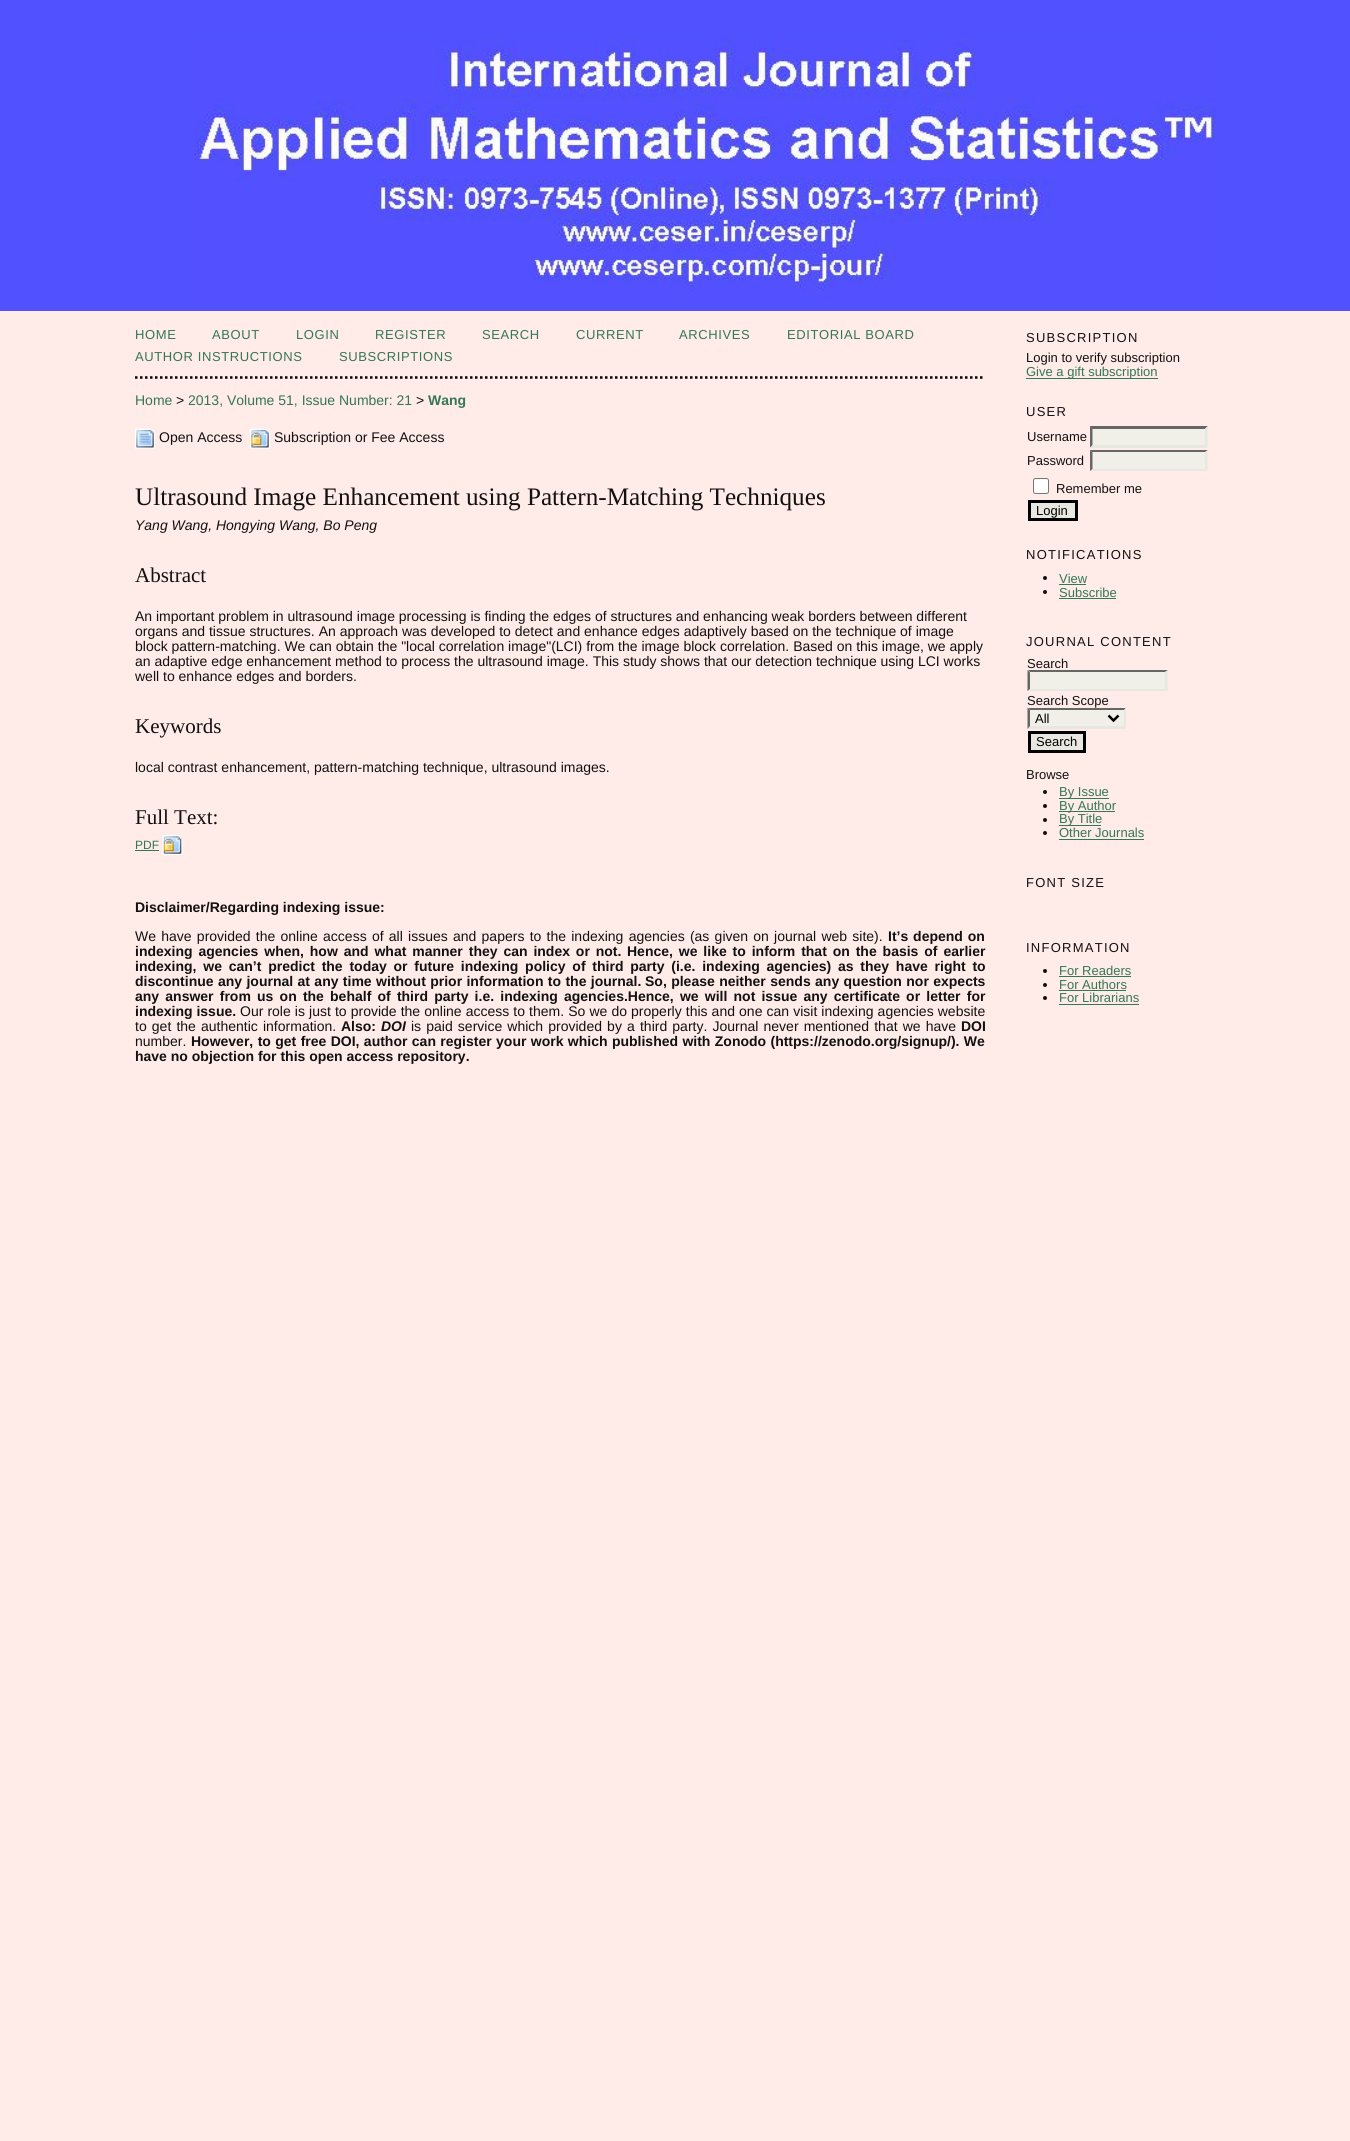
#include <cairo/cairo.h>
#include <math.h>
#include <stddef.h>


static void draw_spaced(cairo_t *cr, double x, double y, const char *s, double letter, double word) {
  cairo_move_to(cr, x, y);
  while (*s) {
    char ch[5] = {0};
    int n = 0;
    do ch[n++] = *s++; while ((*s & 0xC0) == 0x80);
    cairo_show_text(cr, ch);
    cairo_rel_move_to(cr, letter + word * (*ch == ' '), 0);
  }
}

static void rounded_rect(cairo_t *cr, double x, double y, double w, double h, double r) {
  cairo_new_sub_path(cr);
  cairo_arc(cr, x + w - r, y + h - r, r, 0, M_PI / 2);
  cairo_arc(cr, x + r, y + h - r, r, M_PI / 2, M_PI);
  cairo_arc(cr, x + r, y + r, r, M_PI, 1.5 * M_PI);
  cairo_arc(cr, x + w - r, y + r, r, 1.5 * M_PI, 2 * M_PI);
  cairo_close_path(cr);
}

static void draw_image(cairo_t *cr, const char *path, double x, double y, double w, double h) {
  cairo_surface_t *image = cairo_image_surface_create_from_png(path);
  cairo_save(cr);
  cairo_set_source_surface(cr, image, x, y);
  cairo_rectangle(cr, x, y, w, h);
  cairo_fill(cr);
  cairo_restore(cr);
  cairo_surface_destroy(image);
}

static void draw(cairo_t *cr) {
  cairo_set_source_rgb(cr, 1, 235 / 255.0, 231 / 255.0);
  cairo_paint(cr);
  cairo_set_source_rgb(cr, 81 / 255.0, 81 / 255.0, 1);
  cairo_rectangle(cr, 0, 0, 1350, 311);
  cairo_fill(cr);
  draw_image(cr, "images/1.png", 194, 39, 1022, 261);
  cairo_new_path(cr);
  cairo_move_to(cr, 135, 377.5);
  cairo_line_to(cr, 985, 377.5);
  cairo_set_source_rgb(cr, 0, 0, 0);
  cairo_set_line_width(cr, 2.5);
  cairo_set_dash(cr, (double[]){2.5, 2.5}, 2, 0);
  cairo_stroke(cr);
  draw_image(cr, "images/2.png", 135, 428, 20, 21);
  draw_image(cr, "images/3.png", 250, 428, 20, 21);
  cairo_set_source_rgb(cr, 51 / 255.0, 119 / 255.0, 85 / 255.0);
  cairo_rectangle(cr, 135, 850, 24, 1);
  cairo_fill(cr);
  draw_image(cr, "images/4.png", 162, 835, 21, 20);
  cairo_rectangle(cr, 1026, 378, 132, 1);
  cairo_fill(cr);
  cairo_set_source_rgb(cr, 240 / 255.0, 240 / 255.0, 232 / 255.0);
  cairo_rectangle(cr, 1090, 426, 118, 22);
  cairo_fill(cr);
  cairo_set_source_rgb(cr, 102 / 255.0, 102 / 255.0, 102 / 255.0);
  cairo_new_path(cr);
  cairo_move_to(cr, 1090, 426);
  cairo_line_to(cr, 1208, 426);
  cairo_line_to(cr, 1205, 429);
  cairo_line_to(cr, 1092, 429);
  cairo_close_path(cr);
  cairo_fill(cr);
  cairo_set_source_rgb(cr, 232 / 255.0, 232 / 255.0, 225 / 255.0);
  cairo_new_path(cr);
  cairo_move_to(cr, 1207.5, 426);
  cairo_line_to(cr, 1207.5, 447.5);
  cairo_line_to(cr, 1205, 445);
  cairo_line_to(cr, 1205, 429);
  cairo_close_path(cr);
  cairo_fill(cr);
  cairo_new_path(cr);
  cairo_move_to(cr, 1208, 448);
  cairo_line_to(cr, 1090, 448);
  cairo_line_to(cr, 1092, 445);
  cairo_line_to(cr, 1205, 445);
  cairo_close_path(cr);
  cairo_fill(cr);
  cairo_set_source_rgb(cr, 102 / 255.0, 102 / 255.0, 102 / 255.0);
  cairo_new_path(cr);
  cairo_move_to(cr, 1090, 447.5);
  cairo_line_to(cr, 1090, 426);
  cairo_line_to(cr, 1092.5, 429);
  cairo_line_to(cr, 1092.5, 445);
  cairo_close_path(cr);
  cairo_fill(cr);
  cairo_set_source_rgb(cr, 240 / 255.0, 240 / 255.0, 232 / 255.0);
  cairo_rectangle(cr, 1090, 450, 118, 21);
  cairo_fill(cr);
  cairo_set_source_rgb(cr, 102 / 255.0, 102 / 255.0, 102 / 255.0);
  cairo_new_path(cr);
  cairo_move_to(cr, 1090, 450);
  cairo_line_to(cr, 1208, 450);
  cairo_line_to(cr, 1205, 452);
  cairo_line_to(cr, 1092, 452);
  cairo_close_path(cr);
  cairo_fill(cr);
  cairo_set_source_rgb(cr, 232 / 255.0, 232 / 255.0, 225 / 255.0);
  cairo_new_path(cr);
  cairo_move_to(cr, 1207.5, 450);
  cairo_line_to(cr, 1207.5, 471);
  cairo_line_to(cr, 1205, 469);
  cairo_line_to(cr, 1205, 452.5);
  cairo_close_path(cr);
  cairo_fill(cr);
  cairo_new_path(cr);
  cairo_move_to(cr, 1208, 471);
  cairo_line_to(cr, 1090, 471);
  cairo_line_to(cr, 1092, 469);
  cairo_line_to(cr, 1205, 469);
  cairo_close_path(cr);
  cairo_fill(cr);
  cairo_set_source_rgb(cr, 102 / 255.0, 102 / 255.0, 102 / 255.0);
  cairo_new_path(cr);
  cairo_move_to(cr, 1090, 471);
  cairo_line_to(cr, 1090, 450);
  cairo_line_to(cr, 1092.5, 452.5);
  cairo_line_to(cr, 1092.5, 469);
  cairo_close_path(cr);
  cairo_fill(cr);
  cairo_set_source_rgb(cr, 1, 1, 1);
  rounded_rect(cr, 1033.5, 478.5, 15, 15, 2);
  cairo_fill_preserve(cr);
  cairo_set_source_rgb(cr, 118 / 255.0, 118 / 255.0, 118 / 255.0);
  cairo_set_line_width(cr, 1);
  cairo_set_dash(cr, NULL, 0, 0);
  cairo_stroke(cr);
  cairo_set_source_rgb(cr, 232 / 255.0, 232 / 255.0, 225 / 255.0);
  cairo_rectangle(cr, 1029.5, 501.5, 47, 18);
  cairo_fill_preserve(cr);
  cairo_set_source_rgb(cr, 0, 0, 0);
  cairo_set_line_width(cr, 3);
  cairo_stroke(cr);
  cairo_set_source_rgb(cr, 17 / 255.0, 17 / 255.0, 17 / 255.0);
  cairo_arc(cr, 1045, 578, 2, 0, 2 * M_PI);
  cairo_fill(cr);
  cairo_set_source_rgb(cr, 51 / 255.0, 119 / 255.0, 85 / 255.0);
  cairo_rectangle(cr, 1059, 584, 27, 1);
  cairo_fill(cr);
  cairo_set_source_rgb(cr, 17 / 255.0, 17 / 255.0, 17 / 255.0);
  cairo_arc(cr, 1045, 592, 2, 0, 2 * M_PI);
  cairo_fill(cr);
  cairo_set_source_rgb(cr, 51 / 255.0, 119 / 255.0, 85 / 255.0);
  cairo_rectangle(cr, 1059, 598, 57, 1);
  cairo_fill(cr);
  cairo_set_source_rgb(cr, 240 / 255.0, 240 / 255.0, 232 / 255.0);
  cairo_rectangle(cr, 1028, 670, 140, 21);
  cairo_fill(cr);
  cairo_set_source_rgb(cr, 102 / 255.0, 102 / 255.0, 102 / 255.0);
  cairo_new_path(cr);
  cairo_move_to(cr, 1028, 670);
  cairo_line_to(cr, 1168, 670);
  cairo_line_to(cr, 1165, 672);
  cairo_line_to(cr, 1030, 672);
  cairo_close_path(cr);
  cairo_fill(cr);
  cairo_set_source_rgb(cr, 232 / 255.0, 232 / 255.0, 225 / 255.0);
  cairo_new_path(cr);
  cairo_move_to(cr, 1167.5, 670);
  cairo_line_to(cr, 1167.5, 691);
  cairo_line_to(cr, 1165, 689);
  cairo_line_to(cr, 1165, 672.5);
  cairo_close_path(cr);
  cairo_fill(cr);
  cairo_new_path(cr);
  cairo_move_to(cr, 1168, 691);
  cairo_line_to(cr, 1028, 691);
  cairo_line_to(cr, 1030, 689);
  cairo_line_to(cr, 1165, 689);
  cairo_close_path(cr);
  cairo_fill(cr);
  cairo_set_source_rgb(cr, 102 / 255.0, 102 / 255.0, 102 / 255.0);
  cairo_new_path(cr);
  cairo_move_to(cr, 1027.5, 691);
  cairo_line_to(cr, 1027.5, 670);
  cairo_line_to(cr, 1030, 672.5);
  cairo_line_to(cr, 1030, 689);
  cairo_close_path(cr);
  cairo_fill(cr);
  cairo_set_source_rgb(cr, 240 / 255.0, 240 / 255.0, 232 / 255.0);
  cairo_rectangle(cr, 1028, 708, 98, 21);
  cairo_fill(cr);
  cairo_set_source_rgb(cr, 102 / 255.0, 102 / 255.0, 102 / 255.0);
  cairo_new_path(cr);
  cairo_move_to(cr, 1028, 708);
  cairo_line_to(cr, 1126, 708);
  cairo_line_to(cr, 1124, 710);
  cairo_line_to(cr, 1030, 710);
  cairo_close_path(cr);
  cairo_fill(cr);
  cairo_set_source_rgb(cr, 232 / 255.0, 232 / 255.0, 225 / 255.0);
  cairo_new_path(cr);
  cairo_move_to(cr, 1126, 707.5);
  cairo_line_to(cr, 1126, 729);
  cairo_line_to(cr, 1124, 726);
  cairo_line_to(cr, 1124, 710);
  cairo_close_path(cr);
  cairo_fill(cr);
  cairo_new_path(cr);
  cairo_move_to(cr, 1126, 729);
  cairo_line_to(cr, 1028, 729);
  cairo_line_to(cr, 1030, 726);
  cairo_line_to(cr, 1124, 726);
  cairo_close_path(cr);
  cairo_fill(cr);
  cairo_new_path(cr);
  cairo_move_to(cr, 1108.5, 715.5);
  cairo_line_to(cr, 1113.5, 720.5);
  cairo_line_to(cr, 1118.5, 715.5);
  cairo_set_source_rgb(cr, 0, 0, 0);
  cairo_set_line_width(cr, 2.5);
  cairo_stroke(cr);
  cairo_set_source_rgb(cr, 232 / 255.0, 232 / 255.0, 225 / 255.0);
  cairo_rectangle(cr, 1029.5, 732.5, 55, 19);
  cairo_fill_preserve(cr);
  cairo_set_source_rgb(cr, 0, 0, 0);
  cairo_set_line_width(cr, 3);
  cairo_stroke(cr);
  cairo_set_source_rgb(cr, 17 / 255.0, 17 / 255.0, 17 / 255.0);
  cairo_arc(cr, 1045, 792, 2, 0, 2 * M_PI);
  cairo_fill(cr);
  cairo_set_source_rgb(cr, 51 / 255.0, 119 / 255.0, 85 / 255.0);
  cairo_rectangle(cr, 1059, 798, 50, 1);
  cairo_fill(cr);
  cairo_set_source_rgb(cr, 17 / 255.0, 17 / 255.0, 17 / 255.0);
  cairo_arc(cr, 1045, 806, 2, 0, 2 * M_PI);
  cairo_fill(cr);
  cairo_set_source_rgb(cr, 51 / 255.0, 119 / 255.0, 85 / 255.0);
  cairo_rectangle(cr, 1059, 811, 56, 1);
  cairo_fill(cr);
  cairo_set_source_rgb(cr, 17 / 255.0, 17 / 255.0, 17 / 255.0);
  cairo_arc(cr, 1045, 820, 2, 0, 2 * M_PI);
  cairo_fill(cr);
  cairo_set_source_rgb(cr, 51 / 255.0, 119 / 255.0, 85 / 255.0);
  cairo_rectangle(cr, 1059, 825, 42, 1);
  cairo_fill(cr);
  cairo_set_source_rgb(cr, 17 / 255.0, 17 / 255.0, 17 / 255.0);
  cairo_arc(cr, 1045, 833, 2, 0, 2 * M_PI);
  cairo_fill(cr);
  cairo_set_source_rgb(cr, 51 / 255.0, 119 / 255.0, 85 / 255.0);
  cairo_rectangle(cr, 1059, 839, 85, 1);
  cairo_fill(cr);
  cairo_set_source_rgb(cr, 17 / 255.0, 17 / 255.0, 17 / 255.0);
  cairo_arc(cr, 1045, 971, 2, 0, 2 * M_PI);
  cairo_fill(cr);
  cairo_set_source_rgb(cr, 51 / 255.0, 119 / 255.0, 85 / 255.0);
  cairo_rectangle(cr, 1059, 976, 72, 1);
  cairo_fill(cr);
  cairo_set_source_rgb(cr, 17 / 255.0, 17 / 255.0, 17 / 255.0);
  cairo_arc(cr, 1045, 985, 2, 0, 2 * M_PI);
  cairo_fill(cr);
  cairo_set_source_rgb(cr, 51 / 255.0, 119 / 255.0, 85 / 255.0);
  cairo_rectangle(cr, 1059, 990, 67, 1);
  cairo_fill(cr);
  cairo_set_source_rgb(cr, 17 / 255.0, 17 / 255.0, 17 / 255.0);
  cairo_arc(cr, 1045, 998, 2, 0, 2 * M_PI);
  cairo_fill(cr);
  cairo_set_source_rgb(cr, 51 / 255.0, 119 / 255.0, 85 / 255.0);
  cairo_rectangle(cr, 1059, 1004, 80, 1);
  cairo_fill(cr);
  cairo_select_font_face(cr, "Liberation Sans", CAIRO_FONT_SLANT_NORMAL, CAIRO_FONT_WEIGHT_NORMAL);
  cairo_set_font_size(cr, 13);
  draw_spaced(cr, 135, 339, "HOME", 0.6, 0);
  draw_spaced(cr, 212, 339, "ABOUT", 0.6, 0);
  draw_spaced(cr, 296, 339, "LOGIN", 0.6, 0);
  draw_spaced(cr, 375, 339, "REGISTER", 0.6, 0);
  draw_spaced(cr, 482, 339, "SEARCH", 0.6, 0);
  draw_spaced(cr, 576, 339, "CURRENT", 0.6, 0);
  draw_spaced(cr, 679, 339, "ARCHIVES", 0.6, 0);
  draw_spaced(cr, 787, 339, "EDITORIAL BOARD", 0.6, 0);
  draw_spaced(cr, 135, 361, "AUTHOR INSTRUCTIONS", 0.6, 0);
  draw_spaced(cr, 339, 361, "SUBSCRIPTIONS", 0.6, 0);
  cairo_set_font_size(cr, 14);
  cairo_move_to(cr, 135, 405);
  cairo_show_text(cr, "Home");
  cairo_set_source_rgb(cr, 17 / 255.0, 17 / 255.0, 17 / 255.0);
  cairo_move_to(cr, 176, 405);
  cairo_show_text(cr, ">");
  cairo_set_source_rgb(cr, 51 / 255.0, 119 / 255.0, 85 / 255.0);
  cairo_move_to(cr, 188, 405);
  cairo_show_text(cr, "2013, Volume 51, Issue Number: 21");
  cairo_set_source_rgb(cr, 17 / 255.0, 17 / 255.0, 17 / 255.0);
  cairo_move_to(cr, 416, 405);
  cairo_show_text(cr, ">");
  cairo_select_font_face(cr, "Liberation Sans", CAIRO_FONT_SLANT_NORMAL, CAIRO_FONT_WEIGHT_BOLD);
  cairo_set_source_rgb(cr, 51 / 255.0, 119 / 255.0, 85 / 255.0);
  cairo_move_to(cr, 428, 405);
  cairo_show_text(cr, "Wang");
  cairo_select_font_face(cr, "Liberation Sans", CAIRO_FONT_SLANT_NORMAL, CAIRO_FONT_WEIGHT_NORMAL);
  cairo_set_source_rgb(cr, 17 / 255.0, 17 / 255.0, 17 / 255.0);
  cairo_move_to(cr, 159, 442);
  cairo_show_text(cr, "Open Access");
  cairo_move_to(cr, 274, 442);
  cairo_show_text(cr, "Subscription or Fee Access");
  cairo_select_font_face(cr, "Liberation Serif", CAIRO_FONT_SLANT_NORMAL, CAIRO_FONT_WEIGHT_NORMAL);
  cairo_set_font_size(cr, 25.2);
  cairo_move_to(cr, 135, 505);
  cairo_show_text(cr, "Ultrasound Image Enhancement using Pattern-Matching Techniques");
  cairo_select_font_face(cr, "Liberation Sans", CAIRO_FONT_SLANT_ITALIC, CAIRO_FONT_WEIGHT_NORMAL);
  cairo_set_font_size(cr, 14);
  cairo_move_to(cr, 135, 530);
  cairo_show_text(cr, "Yang Wang, Hongying Wang, Bo Peng");
  cairo_select_font_face(cr, "Liberation Serif", CAIRO_FONT_SLANT_NORMAL, CAIRO_FONT_WEIGHT_NORMAL);
  cairo_set_font_size(cr, 21);
  cairo_move_to(cr, 135, 582);
  cairo_show_text(cr, "Abstract");
  cairo_select_font_face(cr, "Liberation Sans", CAIRO_FONT_SLANT_NORMAL, CAIRO_FONT_WEIGHT_NORMAL);
  cairo_set_font_size(cr, 14);
  cairo_move_to(cr, 135, 621);
  cairo_show_text(cr, "An important problem in ultrasound image processing is finding the edges of structures and enhancing weak borders between different");
  cairo_move_to(cr, 135, 636);
  cairo_show_text(cr, "organs and tissue structures. An approach was developed to detect and enhance edges adaptively based on the technique of image");
  cairo_move_to(cr, 135, 651);
  cairo_show_text(cr, "block pattern-matching. We can obtain the \"local correlation image\"(LCI) from the image block correlation. Based on this image, we apply");
  cairo_move_to(cr, 135, 666);
  cairo_show_text(cr, "an adaptive edge enhancement method to process the ultrasound image. This study shows that our detection technique using LCI works");
  cairo_move_to(cr, 135, 681);
  cairo_show_text(cr, "well to enhance edges and borders.");
  cairo_select_font_face(cr, "Liberation Serif", CAIRO_FONT_SLANT_NORMAL, CAIRO_FONT_WEIGHT_NORMAL);
  cairo_set_font_size(cr, 21);
  cairo_move_to(cr, 135, 733);
  cairo_show_text(cr, "Keywords");
  cairo_select_font_face(cr, "Liberation Sans", CAIRO_FONT_SLANT_NORMAL, CAIRO_FONT_WEIGHT_NORMAL);
  cairo_set_font_size(cr, 14);
  cairo_move_to(cr, 135, 772);
  cairo_show_text(cr, "local contrast enhancement, pattern-matching technique, ultrasound images.");
  cairo_select_font_face(cr, "Liberation Serif", CAIRO_FONT_SLANT_NORMAL, CAIRO_FONT_WEIGHT_NORMAL);
  cairo_set_font_size(cr, 21);
  cairo_move_to(cr, 135, 824);
  cairo_show_text(cr, "Full Text:");
  cairo_select_font_face(cr, "Liberation Sans", CAIRO_FONT_SLANT_NORMAL, CAIRO_FONT_WEIGHT_NORMAL);
  cairo_set_font_size(cr, 12);
  cairo_set_source_rgb(cr, 51 / 255.0, 119 / 255.0, 85 / 255.0);
  cairo_move_to(cr, 135, 849);
  cairo_show_text(cr, "PDF");
  cairo_select_font_face(cr, "Liberation Sans", CAIRO_FONT_SLANT_NORMAL, CAIRO_FONT_WEIGHT_BOLD);
  cairo_set_font_size(cr, 14);
  cairo_set_source_rgb(cr, 17 / 255.0, 17 / 255.0, 17 / 255.0);
  cairo_move_to(cr, 135, 912);
  cairo_show_text(cr, "Disclaimer/Regarding indexing issue:");
  cairo_select_font_face(cr, "Liberation Sans", CAIRO_FONT_SLANT_NORMAL, CAIRO_FONT_WEIGHT_NORMAL);
  draw_spaced(cr, 135, 941, "We have provided the online access of all issues and papers to the indexing agencies (as given on journal web site).", 0, 1.35);
  cairo_select_font_face(cr, "Liberation Sans", CAIRO_FONT_SLANT_NORMAL, CAIRO_FONT_WEIGHT_BOLD);
  draw_spaced(cr, 888, 941, "It’s depend on", 0, 1);
  draw_spaced(cr, 135, 956, "indexing agencies when, how and what manner they can index or not.", 0, 2);
  draw_spaced(cr, 627, 956, "Hence, we like to inform that on the basis of earlier", 0, 2);
  draw_spaced(cr, 135, 971, "indexing, we can’t predict the today or future indexing policy of third party (i.e. indexing agencies) as they have right to", 0, 2.9);
  draw_spaced(cr, 135, 986, "discontinue any journal at any time without prior information to the journal.", 0, 0.5);
  draw_spaced(cr, 645, 986, "So, please neither sends any question nor expects", 0, 0.5);
  draw_spaced(cr, 135, 1001, "any answer from us on the behalf of third party i.e. indexing agencies.Hence, we will not issue any certificate or letter for", 0, 2.3);
  cairo_move_to(cr, 135, 1016);
  cairo_show_text(cr, "indexing issue.");
  cairo_select_font_face(cr, "Liberation Sans", CAIRO_FONT_SLANT_NORMAL, CAIRO_FONT_WEIGHT_NORMAL);
  draw_spaced(cr, 240, 1016, "Our role is just to provide the online access to them. So we do properly this and one can visit indexing agencies website", 0, 0.2);
  draw_spaced(cr, 135, 1031, "to get the authentic information.", 0, 1.25);
  cairo_select_font_face(cr, "Liberation Sans", CAIRO_FONT_SLANT_NORMAL, CAIRO_FONT_WEIGHT_BOLD);
  cairo_move_to(cr, 341, 1031);
  cairo_show_text(cr, "Also:");
  cairo_select_font_face(cr, "Liberation Sans", CAIRO_FONT_SLANT_ITALIC, CAIRO_FONT_WEIGHT_BOLD);
  cairo_move_to(cr, 381, 1031);
  cairo_show_text(cr, "DOI");
  cairo_select_font_face(cr, "Liberation Sans", CAIRO_FONT_SLANT_NORMAL, CAIRO_FONT_WEIGHT_NORMAL);
  draw_spaced(cr, 411, 1031, "is paid service which provided by a third party. Journal never mentioned that we have", 0, 1.25);
  cairo_select_font_face(cr, "Liberation Sans", CAIRO_FONT_SLANT_NORMAL, CAIRO_FONT_WEIGHT_BOLD);
  cairo_move_to(cr, 961, 1031);
  cairo_show_text(cr, "DOI");
  cairo_select_font_face(cr, "Liberation Sans", CAIRO_FONT_SLANT_NORMAL, CAIRO_FONT_WEIGHT_NORMAL);
  cairo_move_to(cr, 135, 1046);
  cairo_show_text(cr, "number.");
  cairo_select_font_face(cr, "Liberation Sans", CAIRO_FONT_SLANT_NORMAL, CAIRO_FONT_WEIGHT_BOLD);
  draw_spaced(cr, 191, 1046, "However, to get free DOI, author can register your work which published with Zonodo (https://zenodo.org/signup/). We", 0, 0.5);
  cairo_move_to(cr, 135, 1061);
  cairo_show_text(cr, "have no objection for this open access repository.");
  cairo_select_font_face(cr, "Liberation Sans", CAIRO_FONT_SLANT_NORMAL, CAIRO_FONT_WEIGHT_NORMAL);
  cairo_set_font_size(cr, 13);
  draw_spaced(cr, 1026, 342, "SUBSCRIPTION", 1.25, 0);
  cairo_move_to(cr, 1026, 362);
  cairo_show_text(cr, "Login to verify subscription");
  cairo_set_source_rgb(cr, 51 / 255.0, 119 / 255.0, 85 / 255.0);
  cairo_move_to(cr, 1026, 376);
  cairo_show_text(cr, "Give a gift subscription");
  cairo_set_source_rgb(cr, 17 / 255.0, 17 / 255.0, 17 / 255.0);
  draw_spaced(cr, 1026, 416, "USER", 1.25, 0);
  cairo_move_to(cr, 1027, 441);
  cairo_show_text(cr, "Username");
  cairo_move_to(cr, 1027, 465);
  cairo_show_text(cr, "Password");
  cairo_move_to(cr, 1056, 493);
  cairo_show_text(cr, "Remember me");
  cairo_set_source_rgb(cr, 0, 0, 0);
  cairo_move_to(cr, 1036, 515);
  cairo_show_text(cr, "Login");
  cairo_set_source_rgb(cr, 17 / 255.0, 17 / 255.0, 17 / 255.0);
  draw_spaced(cr, 1026, 559, "NOTIFICATIONS", 1.25, 0);
  cairo_set_source_rgb(cr, 51 / 255.0, 119 / 255.0, 85 / 255.0);
  cairo_move_to(cr, 1059, 583);
  cairo_show_text(cr, "View");
  cairo_move_to(cr, 1059, 597);
  cairo_show_text(cr, "Subscribe");
  cairo_set_source_rgb(cr, 17 / 255.0, 17 / 255.0, 17 / 255.0);
  draw_spaced(cr, 1026, 646, "JOURNAL CONTENT", 1.25, 0);
  cairo_move_to(cr, 1027, 668);
  cairo_show_text(cr, "Search");
  cairo_move_to(cr, 1027, 705);
  cairo_show_text(cr, "Search Scope");
  cairo_set_source_rgb(cr, 102 / 255.0, 102 / 255.0, 102 / 255.0);
  cairo_new_path(cr);
  cairo_move_to(cr, 1027.5, 729);
  cairo_line_to(cr, 1027.5, 707.5);
  cairo_line_to(cr, 1030, 710);
  cairo_line_to(cr, 1030, 726);
  cairo_close_path(cr);
  cairo_fill(cr);
  cairo_set_source_rgb(cr, 0, 0, 0);
  cairo_move_to(cr, 1035, 723);
  cairo_show_text(cr, "All");
  cairo_move_to(cr, 1036, 746);
  cairo_show_text(cr, "Search");
  cairo_set_source_rgb(cr, 17 / 255.0, 17 / 255.0, 17 / 255.0);
  cairo_move_to(cr, 1026, 779);
  cairo_show_text(cr, "Browse");
  cairo_set_source_rgb(cr, 51 / 255.0, 119 / 255.0, 85 / 255.0);
  cairo_move_to(cr, 1059, 796);
  cairo_show_text(cr, "By Issue");
  cairo_move_to(cr, 1059, 810);
  cairo_show_text(cr, "By Author");
  cairo_move_to(cr, 1059, 823);
  cairo_show_text(cr, "By Title");
  cairo_move_to(cr, 1059, 837);
  cairo_show_text(cr, "Other Journals");
  cairo_set_source_rgb(cr, 17 / 255.0, 17 / 255.0, 17 / 255.0);
  draw_spaced(cr, 1026, 887, "FONT SIZE", 1.25, 0);
  draw_spaced(cr, 1026, 952, "INFORMATION", 1.25, 0);
  cairo_set_source_rgb(cr, 51 / 255.0, 119 / 255.0, 85 / 255.0);
  cairo_move_to(cr, 1059, 975);
  cairo_show_text(cr, "For Readers");
  cairo_move_to(cr, 1059, 989);
  cairo_show_text(cr, "For Authors");
  cairo_move_to(cr, 1059, 1002);
  cairo_show_text(cr, "For Librarians");
}

int main(void) {
  cairo_surface_t *surface = cairo_image_surface_create(CAIRO_FORMAT_RGB24, 1350, 2141);
  cairo_t *cr = cairo_create(surface);
  cairo_font_options_t *options = cairo_font_options_create();
  cairo_font_options_set_hint_metrics(options, CAIRO_HINT_METRICS_OFF);
  cairo_font_options_set_hint_style(options, CAIRO_HINT_STYLE_NONE);
  cairo_set_font_options(cr, options);
  cairo_set_miter_limit(cr, 4);
  draw(cr);
  cairo_surface_write_to_png(surface, "out.png");
  cairo_font_options_destroy(options);
  cairo_destroy(cr);
  cairo_surface_destroy(surface);
  return 0;
}
